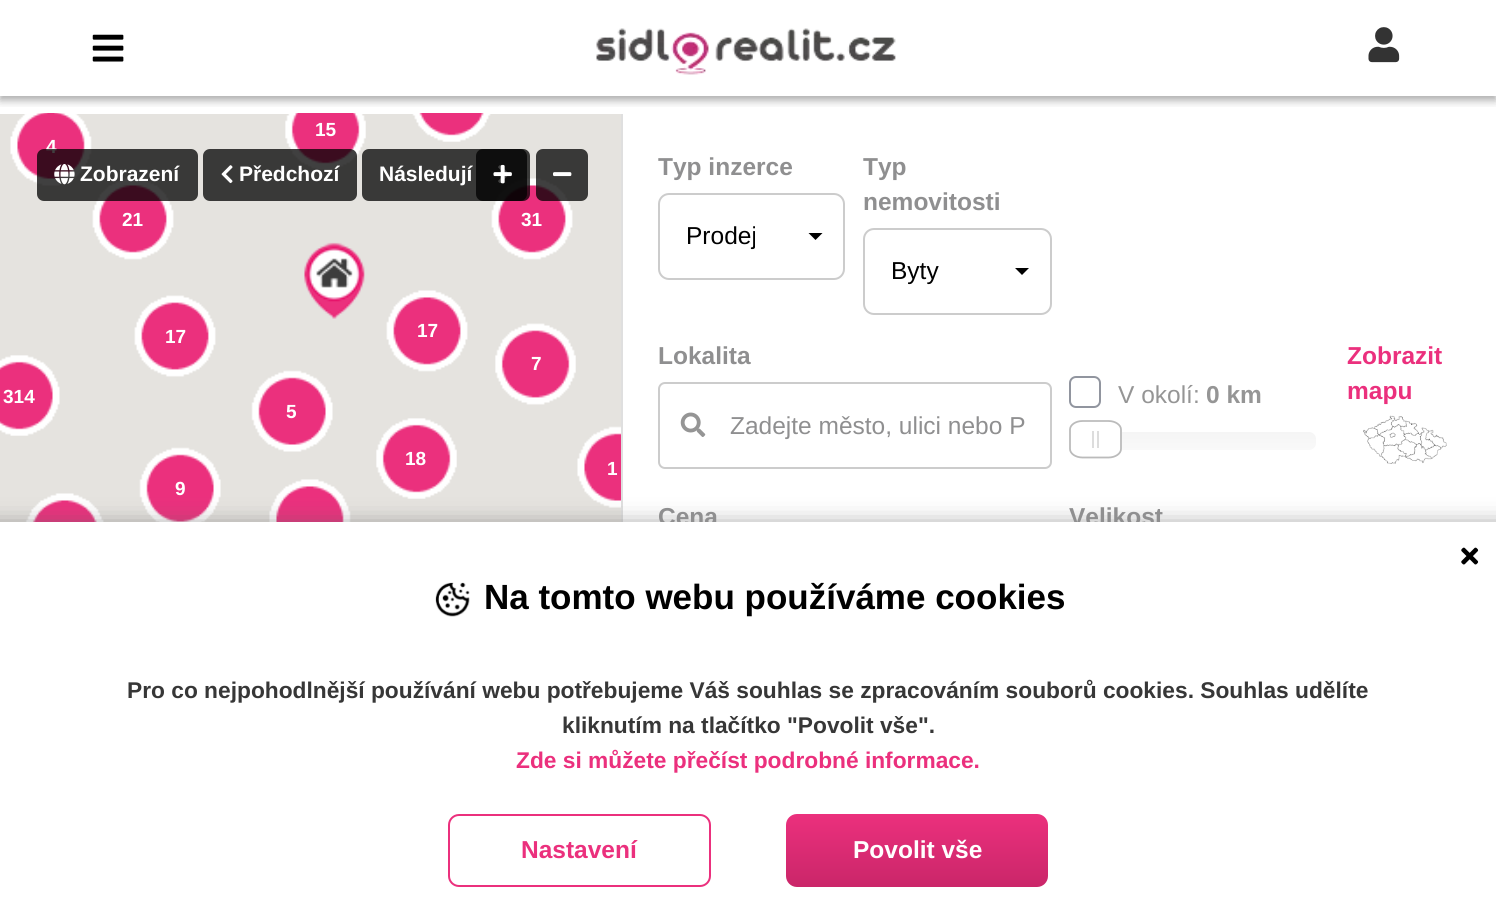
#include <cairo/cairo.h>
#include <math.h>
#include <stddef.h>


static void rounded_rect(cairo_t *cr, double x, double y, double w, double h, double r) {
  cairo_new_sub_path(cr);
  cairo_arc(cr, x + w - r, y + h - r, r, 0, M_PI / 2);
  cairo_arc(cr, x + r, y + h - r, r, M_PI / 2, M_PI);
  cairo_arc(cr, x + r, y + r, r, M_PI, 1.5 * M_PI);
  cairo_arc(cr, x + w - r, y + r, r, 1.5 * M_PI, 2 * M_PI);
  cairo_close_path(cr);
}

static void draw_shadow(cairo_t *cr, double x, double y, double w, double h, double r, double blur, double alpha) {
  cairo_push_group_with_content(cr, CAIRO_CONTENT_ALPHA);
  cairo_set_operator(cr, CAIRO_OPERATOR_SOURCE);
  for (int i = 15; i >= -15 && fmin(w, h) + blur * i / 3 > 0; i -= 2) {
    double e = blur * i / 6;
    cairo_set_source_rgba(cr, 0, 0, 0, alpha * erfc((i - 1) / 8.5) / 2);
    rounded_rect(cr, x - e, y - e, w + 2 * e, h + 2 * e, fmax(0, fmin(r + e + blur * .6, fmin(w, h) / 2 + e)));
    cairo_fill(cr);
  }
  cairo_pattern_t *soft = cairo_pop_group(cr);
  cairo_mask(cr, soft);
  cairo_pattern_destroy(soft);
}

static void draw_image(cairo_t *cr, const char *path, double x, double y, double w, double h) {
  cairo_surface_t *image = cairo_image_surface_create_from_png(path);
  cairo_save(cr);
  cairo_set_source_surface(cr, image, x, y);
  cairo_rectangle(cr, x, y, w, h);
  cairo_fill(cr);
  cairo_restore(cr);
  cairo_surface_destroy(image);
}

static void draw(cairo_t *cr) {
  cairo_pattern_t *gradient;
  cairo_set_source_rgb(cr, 1, 1, 1);
  cairo_paint(cr);
  cairo_save(cr);
  cairo_rectangle(cr, 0, 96, 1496, 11);
  cairo_clip(cr);
  cairo_set_source_rgb(cr, 0, 0, 0);
  draw_shadow(cr, 0, 4, 1496, 96, 0, 4.5, 0.35);
  cairo_restore(cr);
  draw_image(cr, "images/1.png", 92, 34, 32, 28);
  draw_image(cr, "images/2.png", 596, 28, 300, 47);
  draw_image(cr, "images/3.png", 1368, 27, 32, 36);
  cairo_set_source_rgb(cr, 229 / 255.0, 227 / 255.0, 223 / 255.0);
  cairo_rectangle(cr, 0, 114, 621, 408);
  cairo_fill(cr);
  draw_image(cr, "images/4.png", 285, 113, 81, 57);
  draw_image(cr, "images/5.png", 412, 113, 79, 29);
  draw_image(cr, "images/6.png", 10, 113, 82, 73);
  draw_image(cr, "images/7.png", 92, 178, 82, 82);
  draw_image(cr, "images/7.png", 491, 178, 82, 82);
  draw_image(cr, "images/8.png", 134, 295, 82, 82);
  draw_image(cr, "images/9.png", 386, 290, 82, 82);
  draw_image(cr, "images/10.png", 495, 323, 81, 82);
  draw_image(cr, "images/11.png", 0, 355, 60, 81);
  draw_image(cr, "images/12.png", 251, 370, 82, 82);
  draw_image(cr, "images/13.png", 376, 418, 81, 81);
  draw_image(cr, "images/14.png", 577, 426, 44, 82);
  draw_image(cr, "images/15.png", 139, 447, 82, 75);
  draw_image(cr, "images/16.png", 269, 479, 82, 43);
  draw_image(cr, "images/17.png", 25, 493, 79, 29);
  draw_image(cr, "images/18.png", 304, 242, 61, 77);
  cairo_set_source_rgb(cr, 223 / 255.0, 223 / 255.0, 223 / 255.0);
  cairo_rectangle(cr, 621, 114, 2, 408);
  cairo_fill(cr);
  cairo_set_source_rgba(cr, 0, 0, 0, 0.75);
  rounded_rect(cr, 203, 149, 154, 52, 7);
  cairo_fill(cr);
  draw_image(cr, "images/20.png", 221, 165, 12, 19);
  rounded_rect(cr, 362, 149, 165, 52, 7);
  cairo_fill(cr);
  draw_image(cr, "images/21.png", 498, 165, 11, 18);
  rounded_rect(cr, 476, 149, 54, 52, 7);
  cairo_fill(cr);
  draw_image(cr, "images/22.png", 493, 164, 19, 20);
  rounded_rect(cr, 536, 149, 52, 52, 7);
  cairo_fill(cr);
  draw_image(cr, "images/23.png", 553, 172, 19, 5);
  rounded_rect(cr, 659, 194, 185, 85, 10);
  cairo_set_source_rgb(cr, 204 / 255.0, 204 / 255.0, 204 / 255.0);
  cairo_stroke(cr);
  cairo_set_source_rgb(cr, 0, 0, 0);
  cairo_new_path(cr);
  cairo_move_to(cr, 808.5, 233);
  cairo_line_to(cr, 822.5, 233);
  cairo_line_to(cr, 815.5, 240);
  cairo_close_path(cr);
  cairo_fill(cr);
  rounded_rect(cr, 864, 229, 187, 85, 10);
  cairo_set_source_rgb(cr, 204 / 255.0, 204 / 255.0, 204 / 255.0);
  cairo_stroke(cr);
  cairo_set_source_rgb(cr, 0, 0, 0);
  cairo_new_path(cr);
  cairo_move_to(cr, 1015, 268);
  cairo_line_to(cr, 1029, 268);
  cairo_line_to(cr, 1022, 275);
  cairo_close_path(cr);
  cairo_fill(cr);
  rounded_rect(cr, 659, 383, 392, 85, 6);
  cairo_set_source_rgb(cr, 204 / 255.0, 204 / 255.0, 204 / 255.0);
  cairo_stroke(cr);
  draw_image(cr, "images/24.png", 680, 412, 26, 25);
  rounded_rect(cr, 1070, 377, 30, 30, 6);
  cairo_set_source_rgb(cr, 145 / 255.0, 149 / 255.0, 159 / 255.0);
  cairo_stroke(cr);
  gradient = cairo_pattern_create_linear(1193, 432, 1193, 450);
  cairo_pattern_add_color_stop_rgba(gradient, 0, 245 / 255.0, 245 / 255.0, 245 / 255.0, 1);
  cairo_pattern_add_color_stop_rgba(gradient, 1, 249 / 255.0, 249 / 255.0, 249 / 255.0, 1);
  cairo_set_source(cr, gradient);
  cairo_pattern_destroy(gradient);
  rounded_rect(cr, 1069, 432, 247, 18, 7);
  cairo_fill(cr);
  cairo_set_source_rgb(cr, 1, 1, 1);
  cairo_new_path(cr);
  cairo_move_to(cr, 1082, 420);
  cairo_line_to(cr, 1109, 420);
  cairo_curve_to(cr, 1116, 420, 1122, 424, 1122, 430);
  cairo_line_to(cr, 1122, 449);
  cairo_curve_to(cr, 1122, 454, 1116, 458, 1109, 458);
  cairo_line_to(cr, 1082, 458);
  cairo_curve_to(cr, 1075, 458, 1069, 454, 1069, 449);
  cairo_line_to(cr, 1069, 430);
  cairo_curve_to(cr, 1069, 424, 1075, 420, 1082, 420);
  cairo_close_path(cr);
  cairo_fill(cr);
  cairo_new_path(cr);
  cairo_move_to(cr, 1082.5, 421);
  cairo_line_to(cr, 1108.5, 421);
  cairo_curve_to(cr, 1115.5, 421, 1121, 425, 1121, 429.5);
  cairo_line_to(cr, 1121, 449);
  cairo_curve_to(cr, 1121, 453.5, 1115.5, 457.5, 1108.5, 457.5);
  cairo_line_to(cr, 1082.5, 457.5);
  cairo_curve_to(cr, 1075.5, 457.5, 1070, 453.5, 1070, 449);
  cairo_line_to(cr, 1070, 429.5);
  cairo_curve_to(cr, 1070, 425, 1075.5, 421, 1082.5, 421);
  cairo_close_path(cr);
  cairo_set_source_rgb(cr, 187 / 255.0, 187 / 255.0, 187 / 255.0);
  cairo_set_line_width(cr, 1.8);
  cairo_stroke(cr);
  cairo_set_source_rgb(cr, 221 / 255.0, 221 / 255.0, 221 / 255.0);
  cairo_rectangle(cr, 1092, 431, 2, 17);
  cairo_fill(cr);
  cairo_rectangle(cr, 1097, 431, 2, 17);
  cairo_fill(cr);
  draw_image(cr, "images/25.png", 1363, 415, 84, 49);
  cairo_set_source_rgb(cr, 103 / 255.0, 103 / 255.0, 103 / 255.0);
  draw_shadow(cr, -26, 530, 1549, 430, 0, 13, 1);
  cairo_select_font_face(cr, "Liberation Sans", CAIRO_FONT_SLANT_NORMAL, CAIRO_FONT_WEIGHT_BOLD);
  cairo_set_font_size(cr, 19);
  cairo_set_source_rgb(cr, 1, 1, 1);
  cairo_move_to(cr, 315, 136);
  cairo_show_text(cr, "15");
  cairo_move_to(cr, 46, 153);
  cairo_show_text(cr, "4");
  cairo_move_to(cr, 122, 226);
  cairo_show_text(cr, "21");
  cairo_move_to(cr, 521, 226);
  cairo_show_text(cr, "31");
  cairo_move_to(cr, 165, 343);
  cairo_show_text(cr, "17");
  cairo_move_to(cr, 417, 337);
  cairo_show_text(cr, "17");
  cairo_move_to(cr, 531, 370);
  cairo_show_text(cr, "7");
  cairo_move_to(cr, 3, 403);
  cairo_show_text(cr, "314");
  cairo_move_to(cr, 286, 418);
  cairo_show_text(cr, "5");
  cairo_move_to(cr, 405, 465);
  cairo_show_text(cr, "18");
  cairo_move_to(cr, 607, 475);
  cairo_show_text(cr, "1");
  cairo_move_to(cr, 175, 495);
  cairo_show_text(cr, "9");
  cairo_set_source_rgba(cr, 0, 0, 0, 0.75);
  rounded_rect(cr, 37, 149, 161, 52, 7);
  cairo_fill(cr);
  draw_image(cr, "images/19.png", 54, 164, 21, 21);
  cairo_set_font_size(cr, 21);
  cairo_set_source_rgb(cr, 1, 1, 1);
  cairo_move_to(cr, 80, 181);
  cairo_show_text(cr, "Zobrazení");
  cairo_move_to(cr, 239, 181);
  cairo_show_text(cr, "Předchozí");
  cairo_move_to(cr, 379, 181);
  cairo_show_text(cr, "Následují");
  cairo_set_font_size(cr, 24.5);
  cairo_set_source_rgb(cr, 143 / 255.0, 143 / 255.0, 144 / 255.0);
  cairo_move_to(cr, 658, 175);
  cairo_show_text(cr, "Typ inzerce");
  cairo_select_font_face(cr, "Liberation Sans", CAIRO_FONT_SLANT_NORMAL, CAIRO_FONT_WEIGHT_NORMAL);
  cairo_set_source_rgb(cr, 0, 0, 0);
  cairo_move_to(cr, 686, 244);
  cairo_show_text(cr, "Prodej");
  cairo_select_font_face(cr, "Liberation Sans", CAIRO_FONT_SLANT_NORMAL, CAIRO_FONT_WEIGHT_BOLD);
  cairo_set_source_rgb(cr, 143 / 255.0, 143 / 255.0, 144 / 255.0);
  cairo_move_to(cr, 863, 175);
  cairo_show_text(cr, "Typ");
  cairo_move_to(cr, 863, 210);
  cairo_show_text(cr, "nemovitosti");
  cairo_select_font_face(cr, "Liberation Sans", CAIRO_FONT_SLANT_NORMAL, CAIRO_FONT_WEIGHT_NORMAL);
  cairo_set_source_rgb(cr, 0, 0, 0);
  cairo_move_to(cr, 891, 279);
  cairo_show_text(cr, "Byty");
  cairo_select_font_face(cr, "Liberation Sans", CAIRO_FONT_SLANT_NORMAL, CAIRO_FONT_WEIGHT_BOLD);
  cairo_set_source_rgb(cr, 143 / 255.0, 143 / 255.0, 144 / 255.0);
  cairo_move_to(cr, 658, 364);
  cairo_show_text(cr, "Lokalita");
  cairo_select_font_face(cr, "Liberation Sans", CAIRO_FONT_SLANT_NORMAL, CAIRO_FONT_WEIGHT_NORMAL);
  cairo_move_to(cr, 730, 434);
  cairo_show_text(cr, "Zadejte město, ulici nebo P");
  cairo_set_source_rgb(cr, 149 / 255.0, 149 / 255.0, 149 / 255.0);
  cairo_move_to(cr, 1118, 403);
  cairo_show_text(cr, "V okolí:");
  cairo_select_font_face(cr, "Liberation Sans", CAIRO_FONT_SLANT_NORMAL, CAIRO_FONT_WEIGHT_BOLD);
  cairo_move_to(cr, 1206, 403);
  cairo_show_text(cr, "0 km");
  cairo_set_source_rgb(cr, 235 / 255.0, 48 / 255.0, 125 / 255.0);
  cairo_move_to(cr, 1347, 364);
  cairo_show_text(cr, "Zobrazit");
  cairo_move_to(cr, 1347, 399);
  cairo_show_text(cr, "mapu");
  cairo_set_source_rgb(cr, 143 / 255.0, 143 / 255.0, 144 / 255.0);
  cairo_move_to(cr, 658, 525);
  cairo_show_text(cr, "Cena");
  cairo_move_to(cr, 1069, 525);
  cairo_show_text(cr, "Velikost");
  cairo_set_source_rgb(cr, 1, 1, 1);
  cairo_rectangle(cr, 0, 522, 1496, 399);
  cairo_fill(cr);
  draw_image(cr, "images/26.png", 1461, 547, 18, 18);
  draw_image(cr, "images/27.png", 435, 582, 35, 35);
  cairo_set_font_size(cr, 35);
  cairo_set_source_rgb(cr, 0, 0, 0);
  cairo_move_to(cr, 484, 609);
  cairo_show_text(cr, "Na tomto webu používáme cookies");
  cairo_set_font_size(cr, 22.75);
  cairo_set_source_rgb(cr, 55 / 255.0, 55 / 255.0, 55 / 255.0);
  cairo_move_to(cr, 127, 698);
  cairo_show_text(cr, "Pro co nejpohodlnější používání webu potřebujeme Váš souhlas se zpracováním souborů cookies. Souhlas udělíte");
  cairo_move_to(cr, 562, 733);
  cairo_show_text(cr, "kliknutím na tlačítko \"Povolit vše\".");
  cairo_set_source_rgb(cr, 235 / 255.0, 48 / 255.0, 125 / 255.0);
  cairo_move_to(cr, 516, 768);
  cairo_show_text(cr, "Zde si můžete přečíst podrobné informace.");
  rounded_rect(cr, 449, 815, 261, 71, 10);
  cairo_set_line_width(cr, 2);
  cairo_stroke(cr);
  cairo_set_font_size(cr, 24.5);
  cairo_move_to(cr, 521, 858);
  cairo_show_text(cr, "Nastavení");
  gradient = cairo_pattern_create_linear(917, 814, 917, 887);
  cairo_pattern_add_color_stop_rgba(gradient, 0, 235 / 255.0, 48 / 255.0, 125 / 255.0, 1);
  cairo_pattern_add_color_stop_rgba(gradient, 1, 202 / 255.0, 38 / 255.0, 105 / 255.0, 1);
  cairo_set_source(cr, gradient);
  cairo_pattern_destroy(gradient);
  rounded_rect(cr, 786, 814, 262, 73, 11);
  cairo_fill(cr);
  cairo_set_source_rgb(cr, 1, 1, 1);
  cairo_move_to(cr, 853, 858);
  cairo_show_text(cr, "Povolit vše");
}

int main(void) {
  cairo_surface_t *surface = cairo_image_surface_create(CAIRO_FORMAT_RGB24, 1496, 921);
  cairo_t *cr = cairo_create(surface);
  cairo_font_options_t *options = cairo_font_options_create();
  cairo_font_options_set_hint_metrics(options, CAIRO_HINT_METRICS_OFF);
  cairo_font_options_set_hint_style(options, CAIRO_HINT_STYLE_NONE);
  cairo_set_font_options(cr, options);
  cairo_set_miter_limit(cr, 4);
  draw(cr);
  cairo_surface_write_to_png(surface, "out.png");
  cairo_font_options_destroy(options);
  cairo_destroy(cr);
  cairo_surface_destroy(surface);
  return 0;
}
